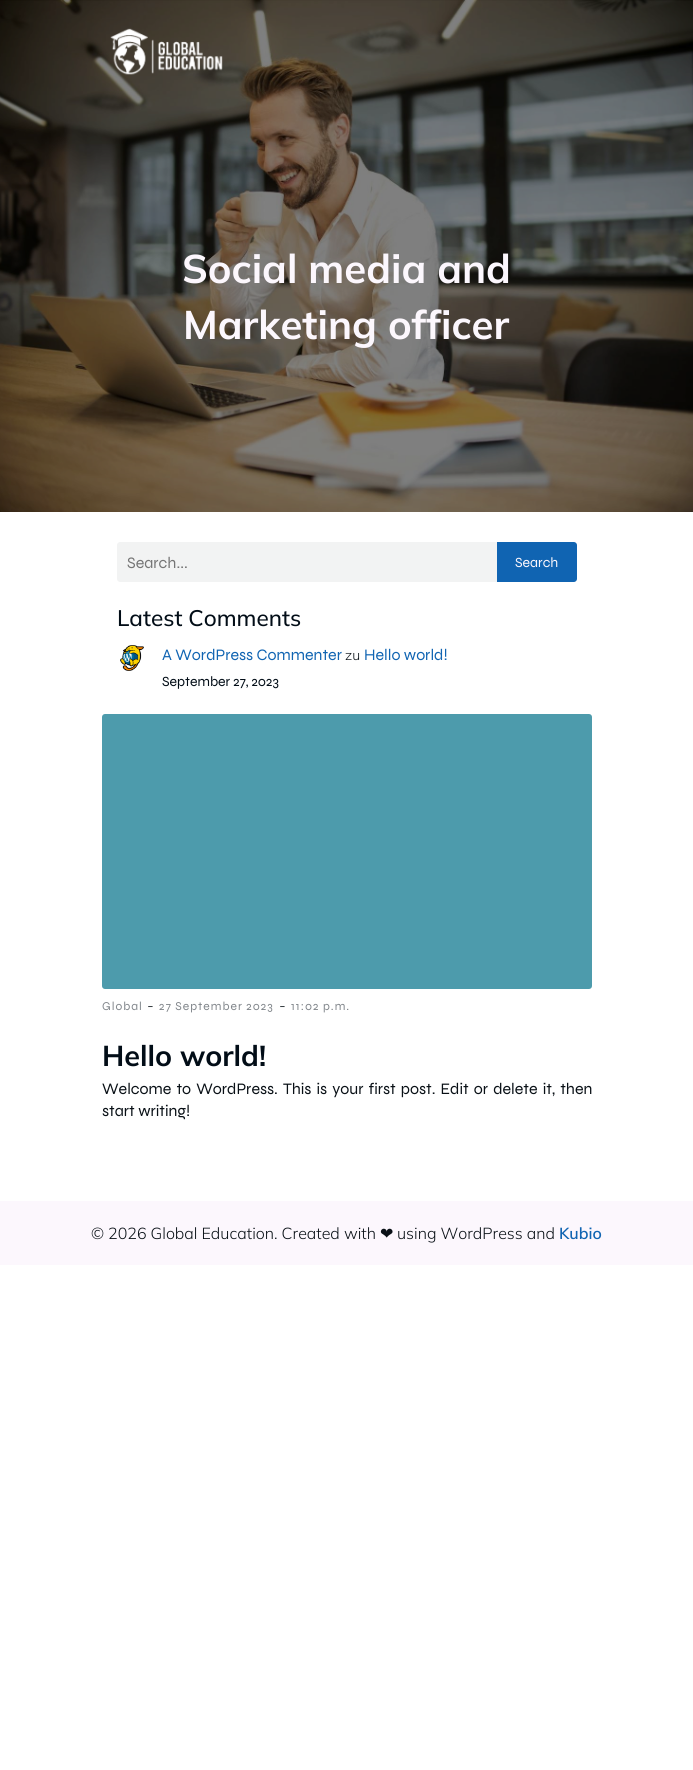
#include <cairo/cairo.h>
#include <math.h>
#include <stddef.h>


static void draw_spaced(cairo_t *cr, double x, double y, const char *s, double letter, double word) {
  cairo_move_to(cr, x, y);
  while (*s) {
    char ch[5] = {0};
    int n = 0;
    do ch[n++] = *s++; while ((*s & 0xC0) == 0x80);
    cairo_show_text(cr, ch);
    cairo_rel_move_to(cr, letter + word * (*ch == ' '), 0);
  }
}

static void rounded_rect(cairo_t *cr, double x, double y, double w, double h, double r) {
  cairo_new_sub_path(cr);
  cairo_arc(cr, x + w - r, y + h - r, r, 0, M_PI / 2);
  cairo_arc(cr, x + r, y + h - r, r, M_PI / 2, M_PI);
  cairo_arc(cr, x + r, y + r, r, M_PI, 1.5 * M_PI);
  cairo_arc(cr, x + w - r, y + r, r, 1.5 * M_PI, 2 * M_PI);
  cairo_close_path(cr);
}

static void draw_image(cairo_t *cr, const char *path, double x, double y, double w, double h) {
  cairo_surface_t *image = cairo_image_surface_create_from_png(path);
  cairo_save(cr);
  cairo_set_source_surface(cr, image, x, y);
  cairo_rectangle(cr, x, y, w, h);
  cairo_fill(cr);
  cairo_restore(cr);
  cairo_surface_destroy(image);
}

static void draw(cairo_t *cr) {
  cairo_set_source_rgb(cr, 1, 1, 1);
  cairo_paint(cr);
  draw_image(cr, "images/2.png", 0, 0, 693, 512);
  draw_image(cr, "images/1.png", 110, 28, 113, 47);
  cairo_set_source_rgb(cr, 242 / 255.0, 243 / 255.0, 243 / 255.0);
  cairo_new_path(cr);
  cairo_move_to(cr, 120, 542);
  cairo_line_to(cr, 497, 542);
  cairo_line_to(cr, 497, 582);
  cairo_line_to(cr, 120, 582);
  cairo_curve_to(cr, 118.5, 582, 117, 580.5, 117, 579);
  cairo_line_to(cr, 117, 545);
  cairo_curve_to(cr, 117, 543.5, 118.5, 542, 120, 542);
  cairo_close_path(cr);
  cairo_fill(cr);
  cairo_set_source_rgb(cr, 16 / 255.0, 100 / 255.0, 178 / 255.0);
  cairo_new_path(cr);
  cairo_move_to(cr, 497, 542);
  cairo_line_to(cr, 574, 542);
  cairo_curve_to(cr, 575.5, 542, 577, 543.5, 577, 545);
  cairo_line_to(cr, 577, 579);
  cairo_curve_to(cr, 577, 580.5, 575.5, 582, 574, 582);
  cairo_line_to(cr, 497, 582);
  cairo_close_path(cr);
  cairo_fill(cr);
  draw_image(cr, "images/3.png", 120, 645, 24, 26);
  cairo_set_source_rgb(cr, 77 / 255.0, 155 / 255.0, 172 / 255.0);
  rounded_rect(cr, 102, 714, 490, 275, 3);
  cairo_fill(cr);
  cairo_set_source_rgb(cr, 252 / 255.0, 247 / 255.0, 253 / 255.0);
  cairo_rectangle(cr, 0, 1201, 693, 64);
  cairo_fill(cr);
  cairo_select_font_face(cr, "Mulish", CAIRO_FONT_SLANT_NORMAL, CAIRO_FONT_WEIGHT_BOLD);
  cairo_set_font_size(cr, 40);
  cairo_move_to(cr, 182, 283);
  cairo_show_text(cr, "Social media and");
  cairo_move_to(cr, 183, 339);
  cairo_show_text(cr, "Marketing officer");
  cairo_select_font_face(cr, "Syne", CAIRO_FONT_SLANT_NORMAL, CAIRO_FONT_WEIGHT_NORMAL);
  cairo_set_font_size(cr, 16);
  cairo_set_source_rgb(cr, 117 / 255.0, 117 / 255.0, 117 / 255.0);
  cairo_move_to(cr, 127, 568);
  cairo_show_text(cr, "Search...");
  cairo_set_font_size(cr, 14);
  cairo_set_source_rgb(cr, 252 / 255.0, 247 / 255.0, 253 / 255.0);
  cairo_move_to(cr, 515, 567);
  cairo_show_text(cr, "Search");
  cairo_select_font_face(cr, "Mulish Medium", CAIRO_FONT_SLANT_NORMAL, CAIRO_FONT_WEIGHT_NORMAL);
  cairo_set_font_size(cr, 22.5);
  cairo_set_source_rgb(cr, 2 / 255.0, 13 / 255.0, 23 / 255.0);
  cairo_move_to(cr, 117, 626);
  cairo_show_text(cr, "Latest Comments");
  cairo_select_font_face(cr, "Syne", CAIRO_FONT_SLANT_NORMAL, CAIRO_FONT_WEIGHT_NORMAL);
  cairo_set_font_size(cr, 16);
  cairo_set_source_rgb(cr, 16 / 255.0, 100 / 255.0, 178 / 255.0);
  cairo_move_to(cr, 162, 660);
  cairo_show_text(cr, "A WordPress Commenter");
  cairo_select_font_face(cr, "Mulish Light", CAIRO_FONT_SLANT_NORMAL, CAIRO_FONT_WEIGHT_NORMAL);
  cairo_set_font_size(cr, 14);
  cairo_set_source_rgb(cr, 9 / 255.0, 16 / 255.0, 22 / 255.0);
  cairo_move_to(cr, 345, 660);
  cairo_show_text(cr, "zu");
  cairo_select_font_face(cr, "Syne", CAIRO_FONT_SLANT_NORMAL, CAIRO_FONT_WEIGHT_NORMAL);
  cairo_set_font_size(cr, 16);
  cairo_set_source_rgb(cr, 16 / 255.0, 100 / 255.0, 178 / 255.0);
  cairo_move_to(cr, 364, 660);
  cairo_show_text(cr, "Hello world!");
  cairo_set_font_size(cr, 14);
  cairo_set_source_rgb(cr, 2 / 255.0, 13 / 255.0, 23 / 255.0);
  cairo_move_to(cr, 162, 686);
  cairo_show_text(cr, "September 27, 2023");
  cairo_set_font_size(cr, 12);
  cairo_set_source_rgb(cr, 129 / 255.0, 134 / 255.0, 139 / 255.0);
  draw_spaced(cr, 102, 1010, "Global", 1, 0);
  cairo_select_font_face(cr, "Mulish Light", CAIRO_FONT_SLANT_NORMAL, CAIRO_FONT_WEIGHT_NORMAL);
  cairo_set_font_size(cr, 16);
  cairo_set_source_rgb(cr, 9 / 255.0, 16 / 255.0, 22 / 255.0);
  cairo_move_to(cr, 147, 1011);
  cairo_show_text(cr, "-");
  cairo_select_font_face(cr, "Syne", CAIRO_FONT_SLANT_NORMAL, CAIRO_FONT_WEIGHT_NORMAL);
  cairo_set_font_size(cr, 12);
  cairo_set_source_rgb(cr, 129 / 255.0, 134 / 255.0, 139 / 255.0);
  draw_spaced(cr, 159, 1010, "27 September 2023", 1, 0);
  cairo_select_font_face(cr, "Mulish Light", CAIRO_FONT_SLANT_NORMAL, CAIRO_FONT_WEIGHT_NORMAL);
  cairo_set_font_size(cr, 16);
  cairo_set_source_rgb(cr, 9 / 255.0, 16 / 255.0, 22 / 255.0);
  cairo_move_to(cr, 279, 1011);
  cairo_show_text(cr, "-");
  cairo_select_font_face(cr, "Syne", CAIRO_FONT_SLANT_NORMAL, CAIRO_FONT_WEIGHT_NORMAL);
  cairo_set_font_size(cr, 12);
  cairo_set_source_rgb(cr, 129 / 255.0, 134 / 255.0, 139 / 255.0);
  draw_spaced(cr, 291, 1010, "11:02 p.m.", 1, 0);
  cairo_select_font_face(cr, "Mulish", CAIRO_FONT_SLANT_NORMAL, CAIRO_FONT_WEIGHT_BOLD);
  cairo_set_font_size(cr, 28.75);
  cairo_set_source_rgb(cr, 2 / 255.0, 13 / 255.0, 23 / 255.0);
  cairo_move_to(cr, 102, 1066);
  cairo_show_text(cr, "Hello world!");
  cairo_select_font_face(cr, "Syne", CAIRO_FONT_SLANT_NORMAL, CAIRO_FONT_WEIGHT_NORMAL);
  cairo_set_font_size(cr, 16);
  cairo_set_source_rgb(cr, 9 / 255.0, 16 / 255.0, 22 / 255.0);
  draw_spaced(cr, 102, 1094, "Welcome to WordPress. This is your first post. Edit or delete it, then", 0, 1.75);
  cairo_move_to(cr, 102, 1116);
  cairo_show_text(cr, "start writing!");
  cairo_select_font_face(cr, "Mulish Light", CAIRO_FONT_SLANT_NORMAL, CAIRO_FONT_WEIGHT_NORMAL);
  cairo_move_to(cr, 91, 1239);
  cairo_show_text(cr, "© 2026 Global Education. Created with");
  cairo_select_font_face(cr, "DejaVu Sans", CAIRO_FONT_SLANT_NORMAL, CAIRO_FONT_WEIGHT_NORMAL);
  cairo_move_to(cr, 380, 1239);
  cairo_show_text(cr, "❤");
  cairo_select_font_face(cr, "Mulish Light", CAIRO_FONT_SLANT_NORMAL, CAIRO_FONT_WEIGHT_NORMAL);
  cairo_move_to(cr, 397, 1239);
  cairo_show_text(cr, "using WordPress and");
  cairo_select_font_face(cr, "Mulish SemiBold", CAIRO_FONT_SLANT_NORMAL, CAIRO_FONT_WEIGHT_NORMAL);
  cairo_set_source_rgb(cr, 16 / 255.0, 100 / 255.0, 178 / 255.0);
  cairo_move_to(cr, 559, 1239);
  cairo_show_text(cr, "Kubio");
}

int main(void) {
  cairo_surface_t *surface = cairo_image_surface_create(CAIRO_FORMAT_RGB24, 693, 1770);
  cairo_t *cr = cairo_create(surface);
  cairo_font_options_t *options = cairo_font_options_create();
  cairo_font_options_set_hint_metrics(options, CAIRO_HINT_METRICS_OFF);
  cairo_font_options_set_hint_style(options, CAIRO_HINT_STYLE_NONE);
  cairo_set_font_options(cr, options);
  cairo_set_miter_limit(cr, 4);
  draw(cr);
  cairo_surface_write_to_png(surface, "out.png");
  cairo_font_options_destroy(options);
  cairo_destroy(cr);
  cairo_surface_destroy(surface);
  return 0;
}
